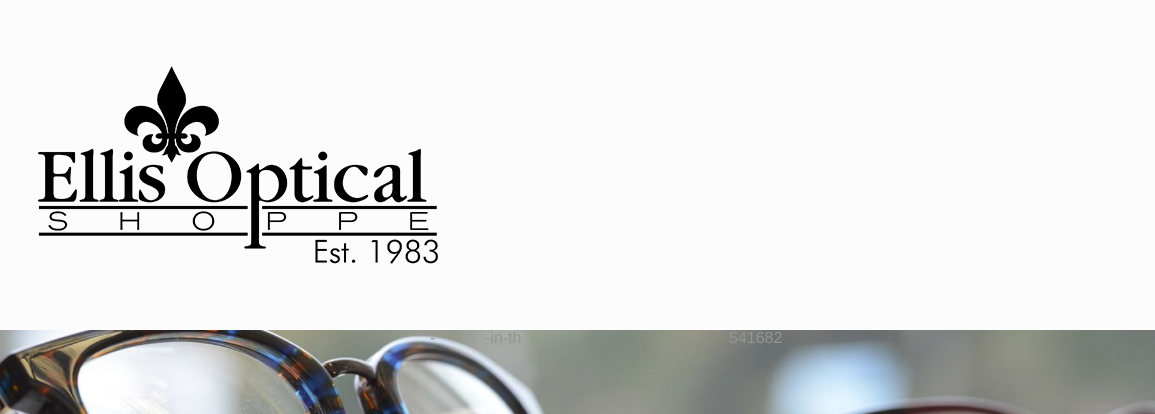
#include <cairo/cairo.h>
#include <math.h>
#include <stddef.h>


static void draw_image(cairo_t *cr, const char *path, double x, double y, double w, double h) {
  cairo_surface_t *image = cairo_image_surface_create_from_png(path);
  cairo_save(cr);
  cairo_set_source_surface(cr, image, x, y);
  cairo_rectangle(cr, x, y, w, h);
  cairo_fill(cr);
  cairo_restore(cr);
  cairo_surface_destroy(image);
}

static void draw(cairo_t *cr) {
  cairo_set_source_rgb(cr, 252 / 255.0, 252 / 255.0, 252 / 255.0);
  cairo_paint(cr);
  draw_image(cr, "images/1.png", 38, 66, 400, 198);
  draw_image(cr, "images/2.png", 0, 330, 1155, 84);
  cairo_select_font_face(cr, "Liberation Sans", CAIRO_FONT_SLANT_NORMAL, CAIRO_FONT_WEIGHT_NORMAL);
  cairo_set_font_size(cr, 16);
  cairo_set_source_rgb(cr, 145 / 255.0, 151 / 255.0, 144 / 255.0);
  cairo_move_to(cr, 430, 343);
  cairo_show_text(cr, "-");
  cairo_move_to(cr, 485, 343);
  cairo_show_text(cr, "-in-th");
  cairo_move_to(cr, 729, 343);
  cairo_show_text(cr, "541682");
}

int main(void) {
  cairo_surface_t *surface = cairo_image_surface_create(CAIRO_FORMAT_RGB24, 1155, 414);
  cairo_t *cr = cairo_create(surface);
  cairo_font_options_t *options = cairo_font_options_create();
  cairo_font_options_set_hint_metrics(options, CAIRO_HINT_METRICS_OFF);
  cairo_font_options_set_hint_style(options, CAIRO_HINT_STYLE_NONE);
  cairo_set_font_options(cr, options);
  cairo_set_miter_limit(cr, 4);
  draw(cr);
  cairo_surface_write_to_png(surface, "out.png");
  cairo_font_options_destroy(options);
  cairo_destroy(cr);
  cairo_surface_destroy(surface);
  return 0;
}
